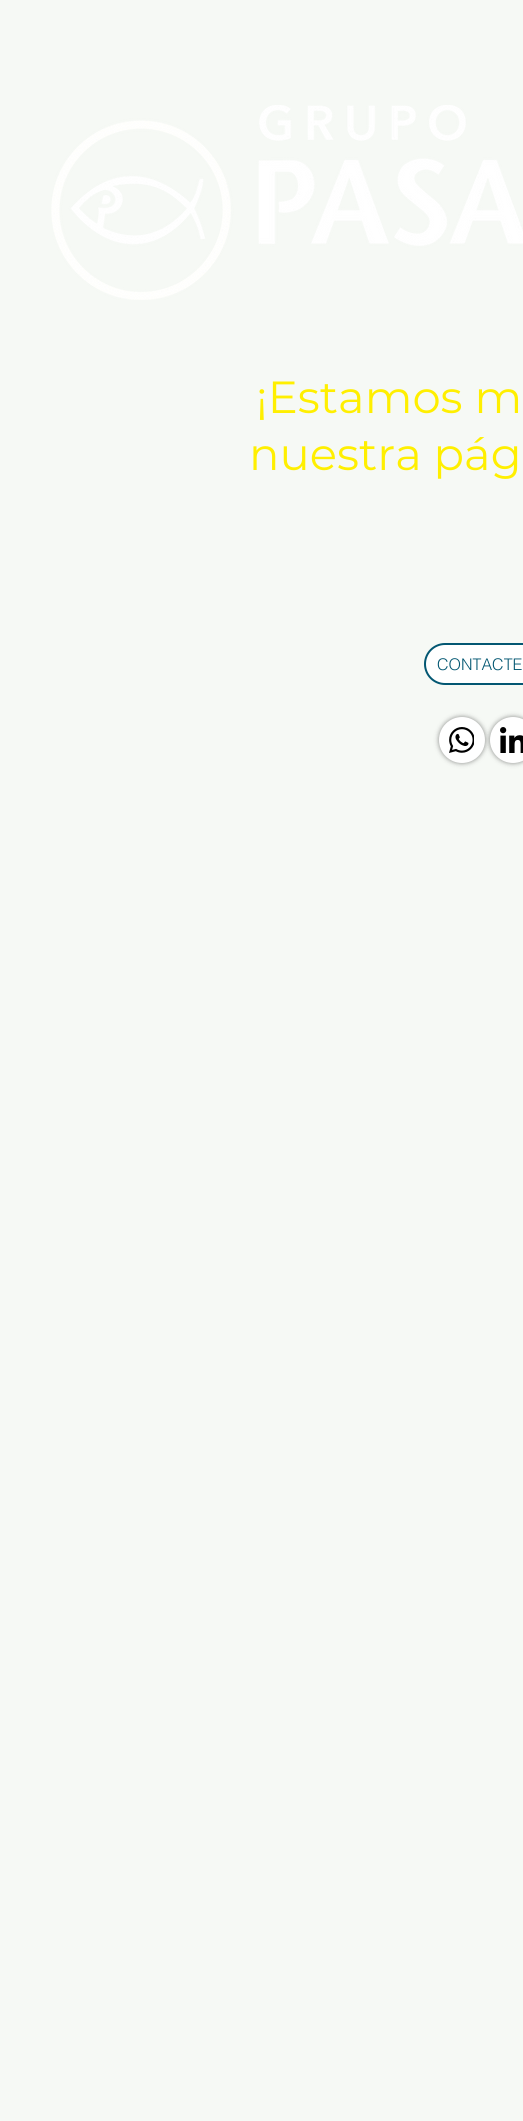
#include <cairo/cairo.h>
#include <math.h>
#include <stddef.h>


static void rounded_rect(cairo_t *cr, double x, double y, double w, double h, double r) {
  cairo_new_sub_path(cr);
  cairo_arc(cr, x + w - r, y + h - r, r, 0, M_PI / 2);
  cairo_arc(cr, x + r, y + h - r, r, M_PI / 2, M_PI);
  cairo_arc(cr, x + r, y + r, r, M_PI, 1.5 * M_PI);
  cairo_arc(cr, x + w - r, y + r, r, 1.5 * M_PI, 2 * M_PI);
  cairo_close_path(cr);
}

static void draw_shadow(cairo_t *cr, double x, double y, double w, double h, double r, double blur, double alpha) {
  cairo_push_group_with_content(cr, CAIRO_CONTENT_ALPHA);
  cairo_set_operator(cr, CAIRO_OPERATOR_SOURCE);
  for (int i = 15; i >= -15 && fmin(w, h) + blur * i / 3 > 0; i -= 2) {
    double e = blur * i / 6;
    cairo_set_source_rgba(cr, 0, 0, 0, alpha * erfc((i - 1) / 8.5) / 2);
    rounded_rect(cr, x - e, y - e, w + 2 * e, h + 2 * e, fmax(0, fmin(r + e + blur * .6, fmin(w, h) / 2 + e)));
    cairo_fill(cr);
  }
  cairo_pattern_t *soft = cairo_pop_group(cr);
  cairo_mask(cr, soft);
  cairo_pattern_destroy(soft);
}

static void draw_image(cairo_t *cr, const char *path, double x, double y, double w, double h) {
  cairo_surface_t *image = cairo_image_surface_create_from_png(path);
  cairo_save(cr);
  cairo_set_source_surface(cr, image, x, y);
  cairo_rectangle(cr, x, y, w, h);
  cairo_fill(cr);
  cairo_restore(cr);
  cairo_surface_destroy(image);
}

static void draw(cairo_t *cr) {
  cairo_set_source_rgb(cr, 246 / 255.0, 249 / 255.0, 245 / 255.0);
  cairo_paint(cr);
  draw_image(cr, "images/1.png", 51, 105, 472, 195);
  cairo_set_source_rgb(cr, 1, 1, 1);
  rounded_rect(cr, 425, 644, 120, 40, 20);
  cairo_fill_preserve(cr);
  cairo_set_source_rgb(cr, 3 / 255.0, 87 / 255.0, 114 / 255.0);
  cairo_stroke(cr);
  cairo_set_source_rgb(cr, 0, 0, 0);
  draw_shadow(cr, 439, 717, 46, 46, 23, 2.5, 0.45);
  cairo_set_source_rgb(cr, 1, 1, 1);
  cairo_arc(cr, 462, 740, 23, 0, 2 * M_PI);
  cairo_fill(cr);
  draw_image(cr, "images/2.png", 449, 727, 25, 26);
  cairo_set_source_rgb(cr, 0, 0, 0);
  draw_shadow(cr, 490, 717, 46, 46, 23, 2.5, 0.45);
  cairo_set_source_rgb(cr, 1, 1, 1);
  cairo_arc(cr, 513, 740, 23, 0, 2 * M_PI);
  cairo_fill(cr);
  draw_image(cr, "images/3.png", 500, 727, 23, 26);
  cairo_select_font_face(cr, "Montserrat", CAIRO_FONT_SLANT_NORMAL, CAIRO_FONT_WEIGHT_NORMAL);
  cairo_set_font_size(cr, 45);
  cairo_set_source_rgb(cr, 1, 239 / 255.0, 0);
  cairo_move_to(cr, 256, 413);
  cairo_show_text(cr, "¡Estamos m");
  cairo_move_to(cr, 249, 470);
  cairo_show_text(cr, "nuestra pág");
  cairo_select_font_face(cr, "helvetica Light", CAIRO_FONT_SLANT_NORMAL, CAIRO_FONT_WEIGHT_NORMAL);
  cairo_set_font_size(cr, 16);
  cairo_set_source_rgb(cr, 3 / 255.0, 87 / 255.0, 114 / 255.0);
  cairo_move_to(cr, 437, 670);
  cairo_show_text(cr, "CONTACTE");
}

int main(void) {
  cairo_surface_t *surface = cairo_image_surface_create(CAIRO_FORMAT_RGB24, 523, 2121);
  cairo_t *cr = cairo_create(surface);
  cairo_font_options_t *options = cairo_font_options_create();
  cairo_font_options_set_hint_metrics(options, CAIRO_HINT_METRICS_OFF);
  cairo_font_options_set_hint_style(options, CAIRO_HINT_STYLE_NONE);
  cairo_set_font_options(cr, options);
  cairo_set_miter_limit(cr, 4);
  draw(cr);
  cairo_surface_write_to_png(surface, "out.png");
  cairo_font_options_destroy(options);
  cairo_destroy(cr);
  cairo_surface_destroy(surface);
  return 0;
}
